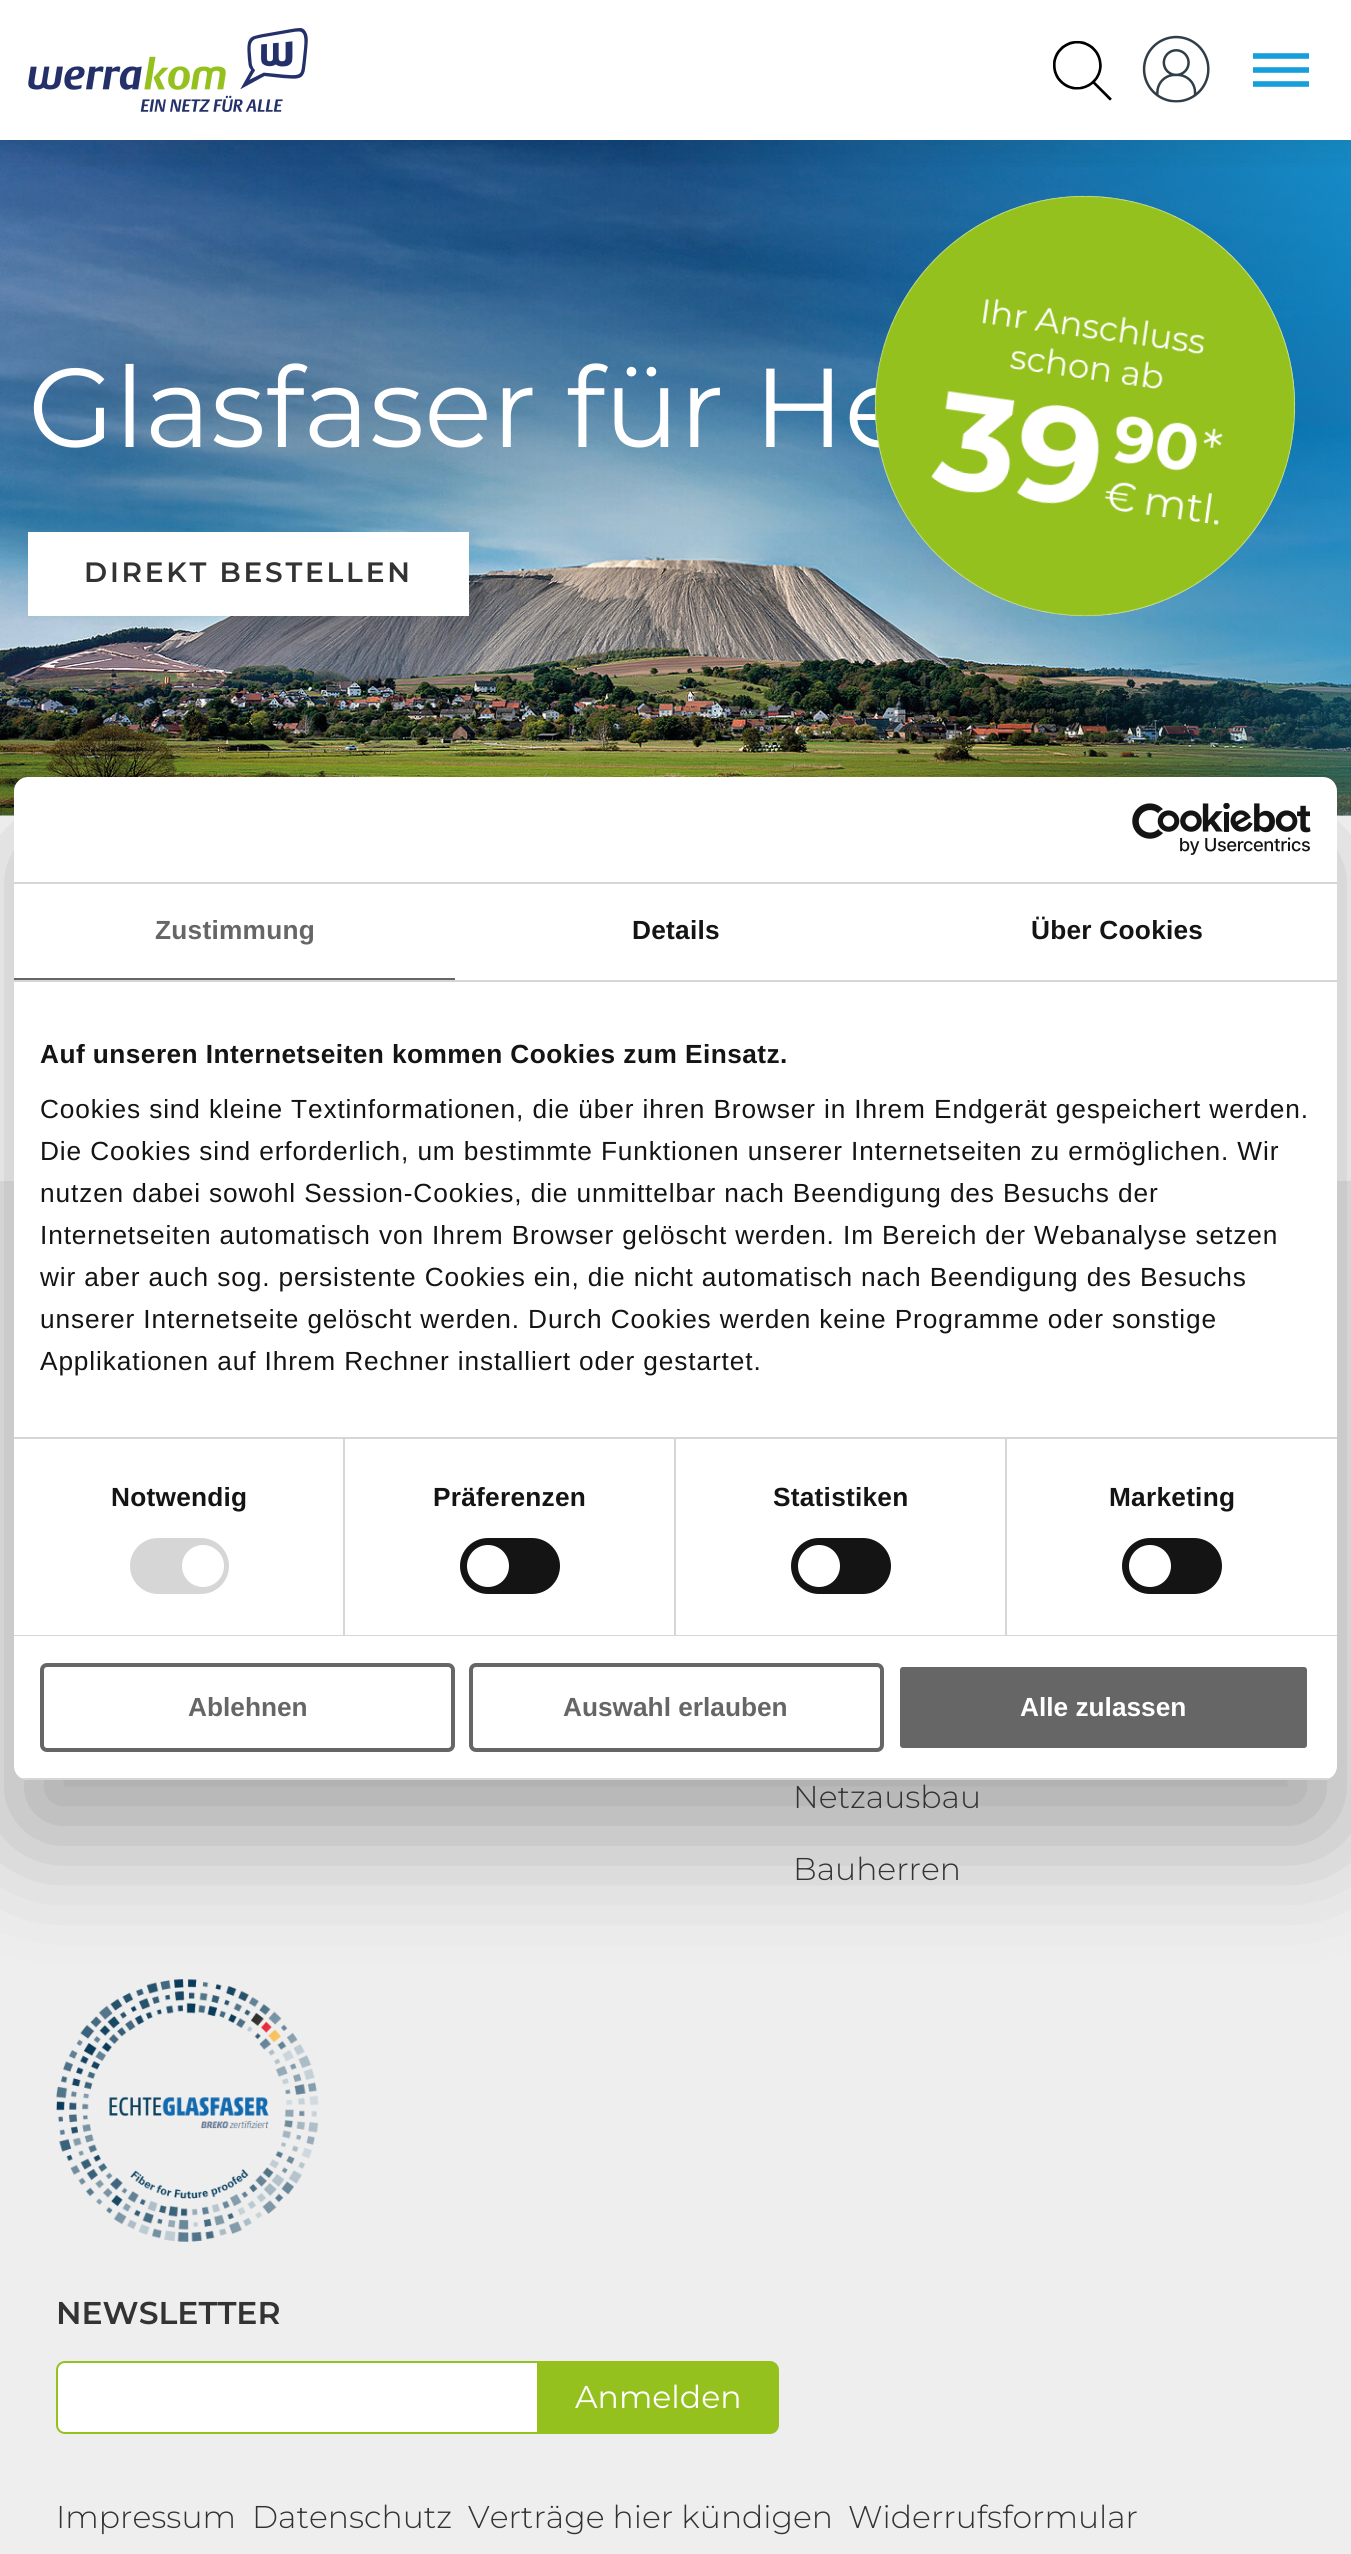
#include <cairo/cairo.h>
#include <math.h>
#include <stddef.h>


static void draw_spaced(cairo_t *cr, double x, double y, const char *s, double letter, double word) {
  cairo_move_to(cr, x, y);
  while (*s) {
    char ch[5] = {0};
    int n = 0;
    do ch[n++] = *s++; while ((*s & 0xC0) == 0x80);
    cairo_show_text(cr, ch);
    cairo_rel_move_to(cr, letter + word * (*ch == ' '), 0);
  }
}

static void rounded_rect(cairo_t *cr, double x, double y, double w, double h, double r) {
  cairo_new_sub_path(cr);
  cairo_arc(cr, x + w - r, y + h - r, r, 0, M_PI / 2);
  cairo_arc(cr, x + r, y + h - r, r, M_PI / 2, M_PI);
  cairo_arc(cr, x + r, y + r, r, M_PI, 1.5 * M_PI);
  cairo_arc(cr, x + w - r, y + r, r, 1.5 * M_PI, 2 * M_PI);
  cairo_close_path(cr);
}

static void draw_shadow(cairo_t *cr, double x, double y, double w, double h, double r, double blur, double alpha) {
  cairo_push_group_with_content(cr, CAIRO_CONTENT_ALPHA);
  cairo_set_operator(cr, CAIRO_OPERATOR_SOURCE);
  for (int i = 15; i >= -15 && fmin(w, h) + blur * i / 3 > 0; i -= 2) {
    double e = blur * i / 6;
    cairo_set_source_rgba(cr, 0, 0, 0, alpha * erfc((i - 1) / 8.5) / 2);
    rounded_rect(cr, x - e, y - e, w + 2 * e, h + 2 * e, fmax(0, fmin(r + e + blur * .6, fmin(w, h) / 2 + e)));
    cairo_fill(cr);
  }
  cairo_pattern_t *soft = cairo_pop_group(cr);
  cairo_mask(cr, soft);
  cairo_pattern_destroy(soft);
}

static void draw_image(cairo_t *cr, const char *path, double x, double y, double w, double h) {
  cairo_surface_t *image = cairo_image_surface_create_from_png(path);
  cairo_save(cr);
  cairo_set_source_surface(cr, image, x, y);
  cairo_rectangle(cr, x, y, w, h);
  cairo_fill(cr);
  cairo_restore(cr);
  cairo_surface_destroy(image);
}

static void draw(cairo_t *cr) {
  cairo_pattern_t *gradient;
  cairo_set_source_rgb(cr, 1, 1, 1);
  cairo_paint(cr);
  draw_image(cr, "images/4.png", 0, 140, 1351, 676);
  gradient = cairo_pattern_create_linear(64, 906, 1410, -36);
  cairo_pattern_add_color_stop_rgba(gradient, 0, 0, 0, 0, 0);
  cairo_pattern_add_color_stop_rgba(gradient, 0.55, 22 / 255.0, 159 / 255.0, 219 / 255.0, 0);
  cairo_pattern_add_color_stop_rgba(gradient, 1, 22 / 255.0, 159 / 255.0, 219 / 255.0, 1);
  cairo_set_source(cr, gradient);
  cairo_pattern_destroy(gradient);
  cairo_rectangle(cr, 651, 140, 700, 676);
  cairo_fill(cr);
  cairo_set_source_rgb(cr, 1, 1, 1);
  cairo_rectangle(cr, 28, 532, 441, 84);
  cairo_fill(cr);
  cairo_new_path(cr);
  cairo_move_to(cr, 1114, 198);
  cairo_curve_to(cr, 999, 182, 893, 262, 877, 377);
  cairo_curve_to(cr, 861, 492, 941, 598, 1056, 614);
  cairo_curve_to(cr, 1171, 630, 1277, 550, 1293, 435);
  cairo_curve_to(cr, 1309, 320, 1229, 214, 1114, 198);
  cairo_close_path(cr);
  cairo_fill(cr);
  cairo_set_source_rgb(cr, 238 / 255.0, 238 / 255.0, 238 / 255.0);
  cairo_rectangle(cr, 0, 1181, 1351, 1373);
  cairo_fill(cr);
  draw_image(cr, "images/7.png", 56, 1979, 263, 263);
  cairo_set_source_rgb(cr, 0, 0, 0);
  draw_shadow(cr, 14, 833, 1323, 1003, 14, 59.5, 0.3);
  cairo_set_source_rgb(cr, 1, 1, 1);
  rounded_rect(cr, 14, 777, 1323, 1003, 14);
  cairo_fill(cr);
  cairo_set_source_rgb(cr, 214 / 255.0, 214 / 255.0, 214 / 255.0);
  cairo_rectangle(cr, 14, 882, 1323, 2);
  cairo_fill(cr);
  draw_image(cr, "images/6.png", 1132, 803, 179, 52);
  cairo_rectangle(cr, 14, 980, 1323, 2);
  cairo_fill(cr);
  cairo_set_source_rgb(cr, 102 / 255.0, 102 / 255.0, 102 / 255.0);
  cairo_rectangle(cr, 14, 978, 441, 2);
  cairo_fill(cr);
  cairo_set_source_rgb(cr, 214 / 255.0, 214 / 255.0, 214 / 255.0);
  cairo_rectangle(cr, 14, 1437, 1323, 2);
  cairo_fill(cr);
  cairo_rectangle(cr, 14, 1635, 1323, 1);
  cairo_fill(cr);
  cairo_rectangle(cr, 343, 1439, 2, 196);
  cairo_fill(cr);
  rounded_rect(cr, 130, 1538, 99, 56, 28);
  cairo_fill(cr);
  cairo_set_source_rgb(cr, 1, 1, 1);
  cairo_arc(cr, 203, 1566, 21, 0, 2 * M_PI);
  cairo_fill(cr);
  cairo_set_source_rgb(cr, 214 / 255.0, 214 / 255.0, 214 / 255.0);
  cairo_rectangle(cr, 674, 1439, 2, 196);
  cairo_fill(cr);
  cairo_set_source_rgb(cr, 20 / 255.0, 20 / 255.0, 20 / 255.0);
  rounded_rect(cr, 460, 1538, 100, 56, 28);
  cairo_fill(cr);
  cairo_set_source_rgb(cr, 1, 1, 1);
  cairo_arc(cr, 488, 1566, 21, 0, 2 * M_PI);
  cairo_fill(cr);
  cairo_set_source_rgb(cr, 214 / 255.0, 214 / 255.0, 214 / 255.0);
  cairo_rectangle(cr, 1005, 1439, 2, 196);
  cairo_fill(cr);
  cairo_set_source_rgb(cr, 20 / 255.0, 20 / 255.0, 20 / 255.0);
  rounded_rect(cr, 791, 1538, 100, 56, 28);
  cairo_fill(cr);
  cairo_set_source_rgb(cr, 1, 1, 1);
  cairo_arc(cr, 819, 1566, 21, 0, 2 * M_PI);
  cairo_fill(cr);
  cairo_set_source_rgb(cr, 20 / 255.0, 20 / 255.0, 20 / 255.0);
  rounded_rect(cr, 1122, 1538, 100, 56, 28);
  cairo_fill(cr);
  cairo_set_source_rgb(cr, 1, 1, 1);
  cairo_arc(cr, 1150, 1566, 21, 0, 2 * M_PI);
  cairo_fill(cr);
  cairo_save(cr);
  rounded_rect(cr, 14, 777, 1323, 1003, 14);
  cairo_clip(cr);
  cairo_set_source_rgb(cr, 214 / 255.0, 214 / 255.0, 214 / 255.0);
  cairo_rectangle(cr, 14, 1778, 1323, 2);
  cairo_fill(cr);
  cairo_restore(cr);
  rounded_rect(cr, 42, 1665, 411, 85, 5);
  cairo_set_source_rgb(cr, 102 / 255.0, 102 / 255.0, 102 / 255.0);
  cairo_set_line_width(cr, 4);
  cairo_stroke(cr);
  rounded_rect(cr, 471, 1665, 411, 85, 5);
  cairo_stroke(cr);
  rounded_rect(cr, 898, 1665, 411, 85, 5);
  cairo_fill_preserve(cr);
  cairo_set_source_rgb(cr, 1, 1, 1);
  cairo_stroke(cr);
  cairo_new_path(cr);
  cairo_move_to(cr, 65, 2362);
  cairo_line_to(cr, 538, 2362);
  cairo_line_to(cr, 538, 2433);
  cairo_line_to(cr, 65, 2433);
  cairo_curve_to(cr, 60.5, 2433, 57, 2429.5, 57, 2425);
  cairo_line_to(cr, 57, 2370);
  cairo_curve_to(cr, 57, 2365.5, 60.5, 2362, 65, 2362);
  cairo_close_path(cr);
  cairo_fill_preserve(cr);
  cairo_set_source_rgb(cr, 149 / 255.0, 193 / 255.0, 31 / 255.0);
  cairo_set_line_width(cr, 2);
  cairo_stroke(cr);
  cairo_new_path(cr);
  cairo_move_to(cr, 541.5, 2363.5);
  cairo_line_to(cr, 770, 2363.5);
  cairo_curve_to(cr, 773.5, 2363.5, 776.5, 2366.5, 776.5, 2370);
  cairo_line_to(cr, 776.5, 2425);
  cairo_curve_to(cr, 776.5, 2428.5, 773.5, 2431.5, 770, 2431.5);
  cairo_line_to(cr, 541.5, 2431.5);
  cairo_close_path(cr);
  cairo_fill_preserve(cr);
  cairo_set_line_width(cr, 5);
  cairo_stroke(cr);
  cairo_select_font_face(cr, "Montserrat Thin", CAIRO_FONT_SLANT_NORMAL, CAIRO_FONT_WEIGHT_NORMAL);
  cairo_set_font_size(cr, 112);
  cairo_set_source_rgb(cr, 1, 1, 1);
  cairo_move_to(cr, 28, 447);
  cairo_show_text(cr, "Glasfaser für He");
  cairo_select_font_face(cr, "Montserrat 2 Thin", CAIRO_FONT_SLANT_NORMAL, CAIRO_FONT_WEIGHT_NORMAL);
  cairo_set_font_size(cr, 28);
  cairo_set_source_rgb(cr, 51 / 255.0, 51 / 255.0, 51 / 255.0);
  draw_spaced(cr, 84, 582, "DIREKT BESTELLEN", 2.75, 0);
  draw_image(cr, "images/5.png", 874, 195, 422, 422);
  cairo_save(cr);
  cairo_rectangle(cr, 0, 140, 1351, 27);
  cairo_clip(cr);
  cairo_set_source_rgb(cr, 0, 0, 0);
  draw_shadow(cr, -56, -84, 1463, 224, 0, 28, 0.12);
  cairo_restore(cr);
  cairo_new_path(cr);
  cairo_move_to(cr, 1253, 56);
  cairo_line_to(cr, 1309, 56);
  cairo_close_path(cr);
  cairo_move_to(cr, 1253, 70);
  cairo_line_to(cr, 1309, 70);
  cairo_close_path(cr);
  cairo_move_to(cr, 1253, 84);
  cairo_line_to(cr, 1309, 84);
  cairo_close_path(cr);
  cairo_set_source_rgb(cr, 22 / 255.0, 159 / 255.0, 219 / 255.0);
  cairo_set_line_width(cr, 5.6);
  cairo_stroke(cr);
  draw_image(cr, "images/1.png", 28, 28, 280, 84);
  draw_image(cr, "images/3.png", 1142, 35, 68, 68);
  draw_image(cr, "images/2.png", 1053, 40, 59, 61);
  cairo_select_font_face(cr, "Liberation Sans", CAIRO_FONT_SLANT_NORMAL, CAIRO_FONT_WEIGHT_BOLD);
  cairo_set_font_size(cr, 26.25);
  cairo_set_source_rgb(cr, 102 / 255.0, 102 / 255.0, 102 / 255.0);
  draw_spaced(cr, 155, 939, "Zustimmung", 0.25, 0);
  cairo_set_source_rgb(cr, 20 / 255.0, 20 / 255.0, 20 / 255.0);
  draw_spaced(cr, 632, 939, "Details", 0.25, 0);
  draw_spaced(cr, 1031, 939, "Über Cookies", 0.25, 0);
  draw_spaced(cr, 40, 1063, "Auf unseren Internetseiten kommen Cookies zum Einsatz.", 0.45, 0);
  cairo_select_font_face(cr, "Liberation Sans", CAIRO_FONT_SLANT_NORMAL, CAIRO_FONT_WEIGHT_NORMAL);
  draw_spaced(cr, 40, 1118, "Cookies sind kleine Textinformationen, die über ihren Browser in Ihrem Endgerät gespeichert werden.", 0.88, 0);
  draw_spaced(cr, 40, 1160, "Die Cookies sind erforderlich, um bestimmte Funktionen unserer Internetseiten zu ermöglichen. Wir", 0.88, 0);
  draw_spaced(cr, 40, 1202, "nutzen dabei sowohl Session-Cookies, die unmittelbar nach Beendigung des Besuchs der", 0.88, 0);
  draw_spaced(cr, 40, 1244, "Internetseiten automatisch von Ihrem Browser gelöscht werden. Im Bereich der Webanalyse setzen", 0.88, 0);
  draw_spaced(cr, 40, 1286, "wir aber auch sog. persistente Cookies ein, die nicht automatisch nach Beendigung des Besuchs", 0.88, 0);
  draw_spaced(cr, 40, 1328, "unserer Internetseite gelöscht werden. Durch Cookies werden keine Programme oder sonstige", 0.88, 0);
  draw_spaced(cr, 40, 1370, "Applikationen auf Ihrem Rechner installiert oder gestartet.", 0.88, 0);
  cairo_select_font_face(cr, "Liberation Sans", CAIRO_FONT_SLANT_NORMAL, CAIRO_FONT_WEIGHT_BOLD);
  draw_spaced(cr, 111, 1506, "Notwendig", 0.25, 0);
  draw_spaced(cr, 433, 1506, "Präferenzen", 0.25, 0);
  draw_spaced(cr, 773, 1506, "Statistiken", 0.25, 0);
  draw_spaced(cr, 1109, 1506, "Marketing", 0.25, 0);
  cairo_set_source_rgb(cr, 102 / 255.0, 102 / 255.0, 102 / 255.0);
  cairo_move_to(cr, 188, 1716);
  cairo_show_text(cr, "Ablehnen");
  cairo_move_to(cr, 563, 1716);
  cairo_show_text(cr, "Auswahl erlauben");
  cairo_set_source_rgb(cr, 1, 1, 1);
  cairo_move_to(cr, 1020, 1716);
  cairo_show_text(cr, "Alle zulassen");
  cairo_select_font_face(cr, "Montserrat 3 Thin", CAIRO_FONT_SLANT_NORMAL, CAIRO_FONT_WEIGHT_NORMAL);
  cairo_set_font_size(cr, 31.5);
  cairo_set_source_rgb(cr, 51 / 255.0, 51 / 255.0, 51 / 255.0);
  cairo_move_to(cr, 793, 1808);
  cairo_show_text(cr, "Netzausbau");
  cairo_move_to(cr, 793, 1880);
  cairo_show_text(cr, "Bauherren");
  cairo_select_font_face(cr, "Montserrat 2 Thin", CAIRO_FONT_SLANT_NORMAL, CAIRO_FONT_WEIGHT_NORMAL);
  cairo_move_to(cr, 56, 2324);
  cairo_show_text(cr, "NEWSLETTER");
  cairo_select_font_face(cr, "Montserrat Thin", CAIRO_FONT_SLANT_NORMAL, CAIRO_FONT_WEIGHT_NORMAL);
  cairo_set_source_rgb(cr, 1, 1, 1);
  cairo_move_to(cr, 575, 2408);
  cairo_show_text(cr, "Anmelden");
  cairo_select_font_face(cr, "Montserrat 3 Thin", CAIRO_FONT_SLANT_NORMAL, CAIRO_FONT_WEIGHT_NORMAL);
  cairo_set_source_rgb(cr, 51 / 255.0, 51 / 255.0, 51 / 255.0);
  cairo_move_to(cr, 56, 2528);
  cairo_show_text(cr, "Impressum");
  cairo_move_to(cr, 252, 2528);
  cairo_show_text(cr, "Datenschutz");
  cairo_move_to(cr, 468, 2528);
  cairo_show_text(cr, "Verträge hier kündigen");
  cairo_move_to(cr, 848, 2528);
  cairo_show_text(cr, "Widerrufsformular");
}

int main(void) {
  cairo_surface_t *surface = cairo_image_surface_create(CAIRO_FORMAT_RGB24, 1351, 2554);
  cairo_t *cr = cairo_create(surface);
  cairo_font_options_t *options = cairo_font_options_create();
  cairo_font_options_set_hint_metrics(options, CAIRO_HINT_METRICS_OFF);
  cairo_font_options_set_hint_style(options, CAIRO_HINT_STYLE_NONE);
  cairo_set_font_options(cr, options);
  cairo_set_miter_limit(cr, 4);
  draw(cr);
  cairo_surface_write_to_png(surface, "out.png");
  cairo_font_options_destroy(options);
  cairo_destroy(cr);
  cairo_surface_destroy(surface);
  return 0;
}
